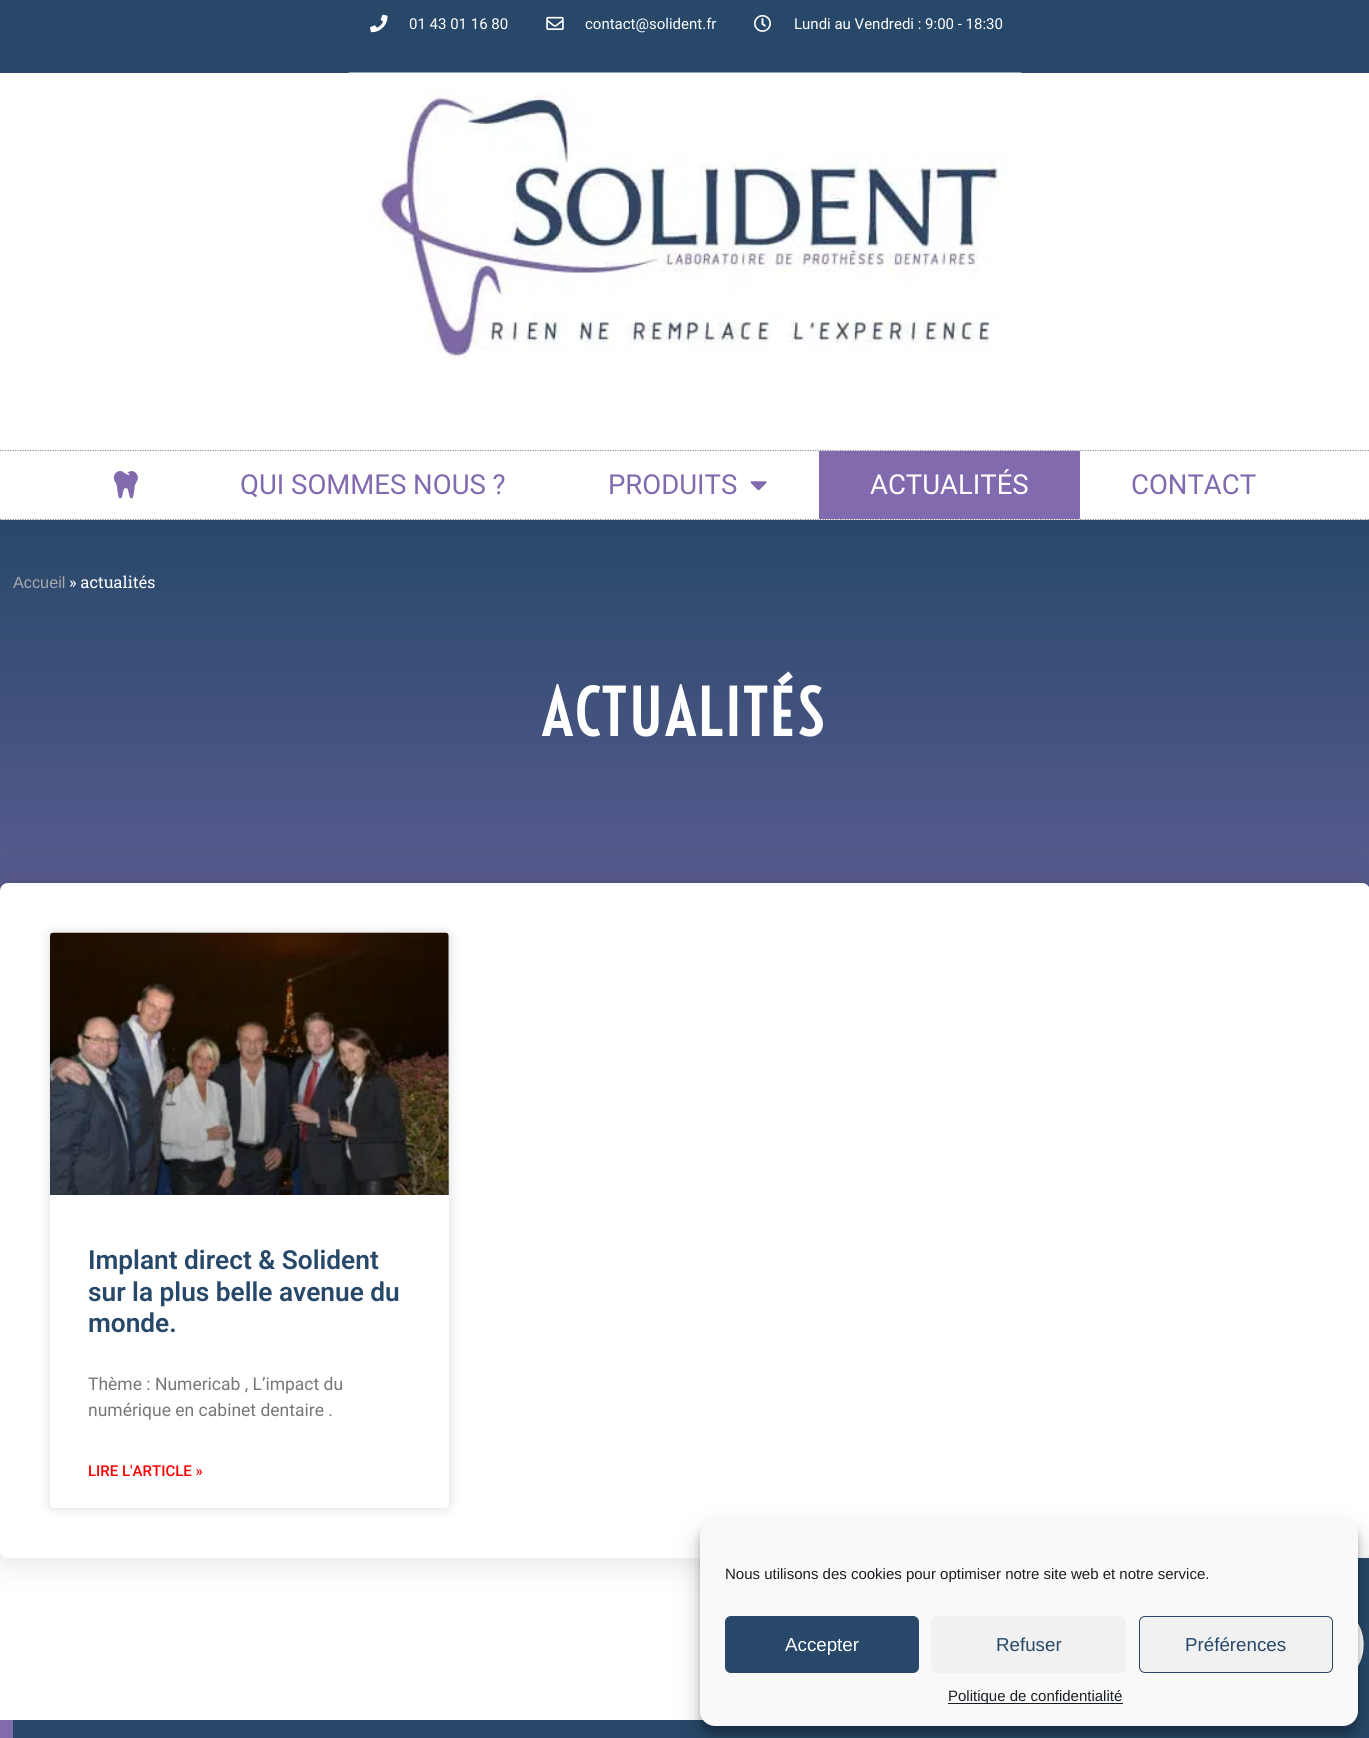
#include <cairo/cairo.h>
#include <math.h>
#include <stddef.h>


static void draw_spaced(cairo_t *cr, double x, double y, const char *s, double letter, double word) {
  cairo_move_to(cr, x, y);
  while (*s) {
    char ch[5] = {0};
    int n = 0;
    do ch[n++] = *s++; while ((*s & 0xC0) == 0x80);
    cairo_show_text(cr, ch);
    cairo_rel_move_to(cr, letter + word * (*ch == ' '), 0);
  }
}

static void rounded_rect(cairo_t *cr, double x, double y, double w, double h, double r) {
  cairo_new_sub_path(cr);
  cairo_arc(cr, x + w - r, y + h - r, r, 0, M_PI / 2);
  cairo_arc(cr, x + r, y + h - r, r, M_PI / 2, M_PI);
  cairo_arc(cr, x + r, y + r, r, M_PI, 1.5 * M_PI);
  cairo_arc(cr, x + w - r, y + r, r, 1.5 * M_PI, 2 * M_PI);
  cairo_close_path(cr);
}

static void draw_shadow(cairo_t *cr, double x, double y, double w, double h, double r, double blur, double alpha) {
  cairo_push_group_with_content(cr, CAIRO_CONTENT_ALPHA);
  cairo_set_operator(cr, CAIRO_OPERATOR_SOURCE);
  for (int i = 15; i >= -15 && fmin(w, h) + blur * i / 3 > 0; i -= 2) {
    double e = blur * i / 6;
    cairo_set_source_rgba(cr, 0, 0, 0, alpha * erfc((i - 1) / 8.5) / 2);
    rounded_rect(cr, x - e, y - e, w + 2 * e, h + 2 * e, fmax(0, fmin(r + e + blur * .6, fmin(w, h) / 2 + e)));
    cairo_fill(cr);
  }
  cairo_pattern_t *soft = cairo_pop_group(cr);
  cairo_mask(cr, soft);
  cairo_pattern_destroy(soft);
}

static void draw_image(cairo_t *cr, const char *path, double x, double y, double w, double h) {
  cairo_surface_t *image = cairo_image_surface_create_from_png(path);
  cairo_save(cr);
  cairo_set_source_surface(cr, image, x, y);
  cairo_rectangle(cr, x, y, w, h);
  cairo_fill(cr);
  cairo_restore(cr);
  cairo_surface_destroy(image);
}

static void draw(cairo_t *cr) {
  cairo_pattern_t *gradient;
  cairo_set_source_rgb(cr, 1, 1, 1);
  cairo_paint(cr);
  cairo_set_source_rgb(cr, 39 / 255.0, 72 / 255.0, 105 / 255.0);
  cairo_rectangle(cr, 0, 0, 1369, 73);
  cairo_fill(cr);
  draw_image(cr, "images/1.png", 370, 14, 18, 19);
  draw_image(cr, "images/2.png", 546, 16, 18, 14);
  draw_image(cr, "images/3.png", 754, 15, 17, 17);
  draw_image(cr, "images/4.png", 348, 72, 674, 290);
  cairo_new_path(cr);
  cairo_move_to(cr, 0, 450.5);
  cairo_line_to(cr, 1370, 450.5);
  cairo_set_source_rgb(cr, 142 / 255.0, 142 / 255.0, 142 / 255.0);
  cairo_set_line_width(cr, 1.2);
  cairo_set_dash(cr, (double[]){1.25, 1.25}, 2, 0);
  cairo_stroke(cr);
  cairo_new_path(cr);
  cairo_move_to(cr, 0, 519.5);
  cairo_line_to(cr, 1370, 519.5);
  cairo_stroke(cr);
  draw_image(cr, "images/5.png", 113, 471, 25, 28);
  draw_image(cr, "images/6.png", 750, 481, 17, 10);
  cairo_set_source_rgb(cr, 130 / 255.0, 106 / 255.0, 175 / 255.0);
  cairo_rectangle(cr, 819, 451, 261, 68);
  cairo_fill(cr);
  gradient = cairo_pattern_create_linear(685, 520, 685, 1195);
  cairo_pattern_add_color_stop_rgba(gradient, 0, 39 / 255.0, 72 / 255.0, 105 / 255.0, 1);
  cairo_pattern_add_color_stop_rgba(gradient, 1, 130 / 255.0, 106 / 255.0, 175 / 255.0, 1);
  cairo_set_source(cr, gradient);
  cairo_pattern_destroy(gradient);
  cairo_rectangle(cr, 0, 520, 1369, 371);
  cairo_fill(cr);
  cairo_set_source_rgb(cr, 0, 0, 0);
  draw_shadow(cr, 0, 883, 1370, 675, 8, 19, 0.13);
  cairo_set_source_rgb(cr, 1, 1, 1);
  rounded_rect(cr, 0, 883, 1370, 675, 8);
  cairo_fill(cr);
  cairo_set_source_rgb(cr, 0, 0, 0);
  draw_shadow(cr, 50, 933, 399, 575, 4, 6, 0.15);
  cairo_set_source_rgb(cr, 1, 1, 1);
  rounded_rect(cr, 50, 933, 399, 575, 4);
  cairo_fill(cr);
  draw_image(cr, "images/7.png", 50, 932, 399, 263);
  gradient = cairo_pattern_create_linear(249, 1195, 249, 933);
  cairo_pattern_add_color_stop_rgba(gradient, 0, 0, 0, 0, 0.35);
  cairo_pattern_add_color_stop_rgba(gradient, 0.75, 0, 0, 0, 0);
  cairo_set_source(cr, gradient);
  cairo_pattern_destroy(gradient);
  cairo_rectangle(cr, 50, 1011, 399, 184);
  cairo_fill(cr);
  cairo_set_source_rgb(cr, 39 / 255.0, 72 / 255.0, 105 / 255.0);
  cairo_rectangle(cr, 1355, 1558, 14, 162);
  cairo_fill(cr);
  draw_image(cr, "images/8.png", 1358, 1623, 6, 43);
  cairo_rectangle(cr, 13, 1720, 1356, 18);
  cairo_fill(cr);
  cairo_set_source_rgb(cr, 130 / 255.0, 106 / 255.0, 175 / 255.0);
  cairo_rectangle(cr, 0, 1720, 13, 18);
  cairo_fill(cr);
  cairo_set_source_rgb(cr, 0, 0, 0);
  draw_shadow(cr, 700, 1526, 658, 208, 15, 4, 0.23);
  draw_shadow(cr, 700, 1531, 658, 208, 15, 12.5, 0.19);
  cairo_set_source_rgb(cr, 249 / 255.0, 249 / 255.0, 249 / 255.0);
  rounded_rect(cr, 700, 1519, 658, 207, 15);
  cairo_fill(cr);
  cairo_set_source_rgb(cr, 39 / 255.0, 72 / 255.0, 105 / 255.0);
  rounded_rect(cr, 725.5, 1616.5, 193, 56, 5.5);
  cairo_fill_preserve(cr);
  cairo_set_line_width(cr, 1);
  cairo_set_dash(cr, NULL, 0, 0);
  cairo_stroke(cr);
  cairo_set_source_rgb(cr, 241 / 255.0, 241 / 255.0, 241 / 255.0);
  rounded_rect(cr, 931, 1616, 195, 57, 6);
  cairo_fill(cr);
  rounded_rect(cr, 1139.5, 1616.5, 193, 56, 5.5);
  cairo_fill_preserve(cr);
  cairo_set_source_rgb(cr, 39 / 255.0, 72 / 255.0, 105 / 255.0);
  cairo_stroke(cr);
  cairo_set_source_rgb(cr, 25 / 255.0, 30 / 255.0, 35 / 255.0);
  cairo_rectangle(cr, 948, 1703, 175, 1);
  cairo_fill(cr);
  cairo_select_font_face(cr, "Roboto", CAIRO_FONT_SLANT_NORMAL, CAIRO_FONT_WEIGHT_NORMAL);
  cairo_set_font_size(cr, 15);
  cairo_set_source_rgb(cr, 1, 1, 1);
  cairo_move_to(cr, 409, 29);
  cairo_show_text(cr, "01 43 01 16 80");
  cairo_move_to(cr, 585, 29);
  cairo_show_text(cr, "contact@solident.fr");
  cairo_move_to(cr, 794, 29);
  cairo_show_text(cr, "Lundi au Vendredi : 9:00 - 18:30");
  cairo_set_font_size(cr, 27.5);
  cairo_set_source_rgb(cr, 130 / 255.0, 106 / 255.0, 175 / 255.0);
  cairo_move_to(cr, 240, 494);
  cairo_show_text(cr, "QUI SOMMES NOUS ?");
  cairo_move_to(cr, 608, 494);
  cairo_show_text(cr, "PRODUITS");
  cairo_set_source_rgb(cr, 1, 1, 1);
  cairo_move_to(cr, 870, 494);
  cairo_show_text(cr, "ACTUALITÉS");
  cairo_set_source_rgb(cr, 130 / 255.0, 106 / 255.0, 175 / 255.0);
  cairo_move_to(cr, 1131, 494);
  cairo_show_text(cr, "CONTACT");
  cairo_select_font_face(cr, "Liberation Sans", CAIRO_FONT_SLANT_NORMAL, CAIRO_FONT_WEIGHT_NORMAL);
  cairo_set_font_size(cr, 16.25);
  cairo_set_source_rgb(cr, 168 / 255.0, 169 / 255.0, 173 / 255.0);
  cairo_move_to(cr, 13, 588);
  cairo_show_text(cr, "Accueil");
  cairo_select_font_face(cr, "Roboto Slab", CAIRO_FONT_SLANT_NORMAL, CAIRO_FONT_WEIGHT_NORMAL);
  cairo_set_source_rgb(cr, 1, 1, 1);
  cairo_move_to(cr, 69, 588);
  cairo_show_text(cr, "» actualités");
  cairo_select_font_face(cr, "Voltaire", CAIRO_FONT_SLANT_NORMAL, CAIRO_FONT_WEIGHT_BOLD);
  cairo_set_font_size(cr, 62.5);
  draw_spaced(cr, 542, 736, "ACTUALITÉS", 3.1, 0);
  cairo_select_font_face(cr, "Roboto SemiBold", CAIRO_FONT_SLANT_NORMAL, CAIRO_FONT_WEIGHT_NORMAL);
  cairo_set_font_size(cr, 26.25);
  cairo_set_source_rgb(cr, 39 / 255.0, 72 / 255.0, 105 / 255.0);
  cairo_move_to(cr, 88, 1269);
  cairo_show_text(cr, "Implant direct & Solident");
  cairo_move_to(cr, 88, 1301);
  cairo_show_text(cr, "sur la plus belle avenue du");
  cairo_move_to(cr, 88, 1332);
  cairo_show_text(cr, "monde.");
  cairo_select_font_face(cr, "Roboto", CAIRO_FONT_SLANT_NORMAL, CAIRO_FONT_WEIGHT_NORMAL);
  cairo_set_font_size(cr, 17.5);
  cairo_set_source_rgb(cr, 119 / 255.0, 119 / 255.0, 119 / 255.0);
  cairo_move_to(cr, 88, 1390);
  cairo_show_text(cr, "Thème : Numericab , L’impact du");
  cairo_move_to(cr, 88, 1416);
  cairo_show_text(cr, "numérique en cabinet dentaire .");
  cairo_select_font_face(cr, "Roboto Medium", CAIRO_FONT_SLANT_NORMAL, CAIRO_FONT_WEIGHT_NORMAL);
  cairo_set_font_size(cr, 15);
  cairo_set_source_rgb(cr, 1, 0, 0);
  cairo_move_to(cr, 88, 1476);
  cairo_show_text(cr, "LIRE L'ARTICLE »");
  cairo_select_font_face(cr, "Liberation Sans", CAIRO_FONT_SLANT_NORMAL, CAIRO_FONT_WEIGHT_NORMAL);
  cairo_set_source_rgb(cr, 25 / 255.0, 30 / 255.0, 35 / 255.0);
  cairo_move_to(cr, 725, 1579);
  cairo_show_text(cr, "Nous utilisons des cookies pour optimiser notre site web et notre service.");
  cairo_set_font_size(cr, 18.75);
  cairo_set_source_rgb(cr, 1, 1, 1);
  cairo_move_to(cr, 785, 1651);
  cairo_show_text(cr, "Accepter");
  cairo_set_source_rgb(cr, 39 / 255.0, 72 / 255.0, 105 / 255.0);
  cairo_move_to(cr, 996, 1651);
  cairo_show_text(cr, "Refuser");
  cairo_move_to(cr, 1185, 1651);
  cairo_show_text(cr, "Préférences");
  cairo_set_font_size(cr, 15);
  cairo_set_source_rgb(cr, 25 / 255.0, 30 / 255.0, 35 / 255.0);
  cairo_move_to(cr, 948, 1701);
  cairo_show_text(cr, "Politique de confidentialité");
}

int main(void) {
  cairo_surface_t *surface = cairo_image_surface_create(CAIRO_FORMAT_RGB24, 1369, 1738);
  cairo_t *cr = cairo_create(surface);
  cairo_font_options_t *options = cairo_font_options_create();
  cairo_font_options_set_hint_metrics(options, CAIRO_HINT_METRICS_OFF);
  cairo_font_options_set_hint_style(options, CAIRO_HINT_STYLE_NONE);
  cairo_set_font_options(cr, options);
  cairo_set_miter_limit(cr, 4);
  draw(cr);
  cairo_surface_write_to_png(surface, "out.png");
  cairo_font_options_destroy(options);
  cairo_destroy(cr);
  cairo_surface_destroy(surface);
  return 0;
}
